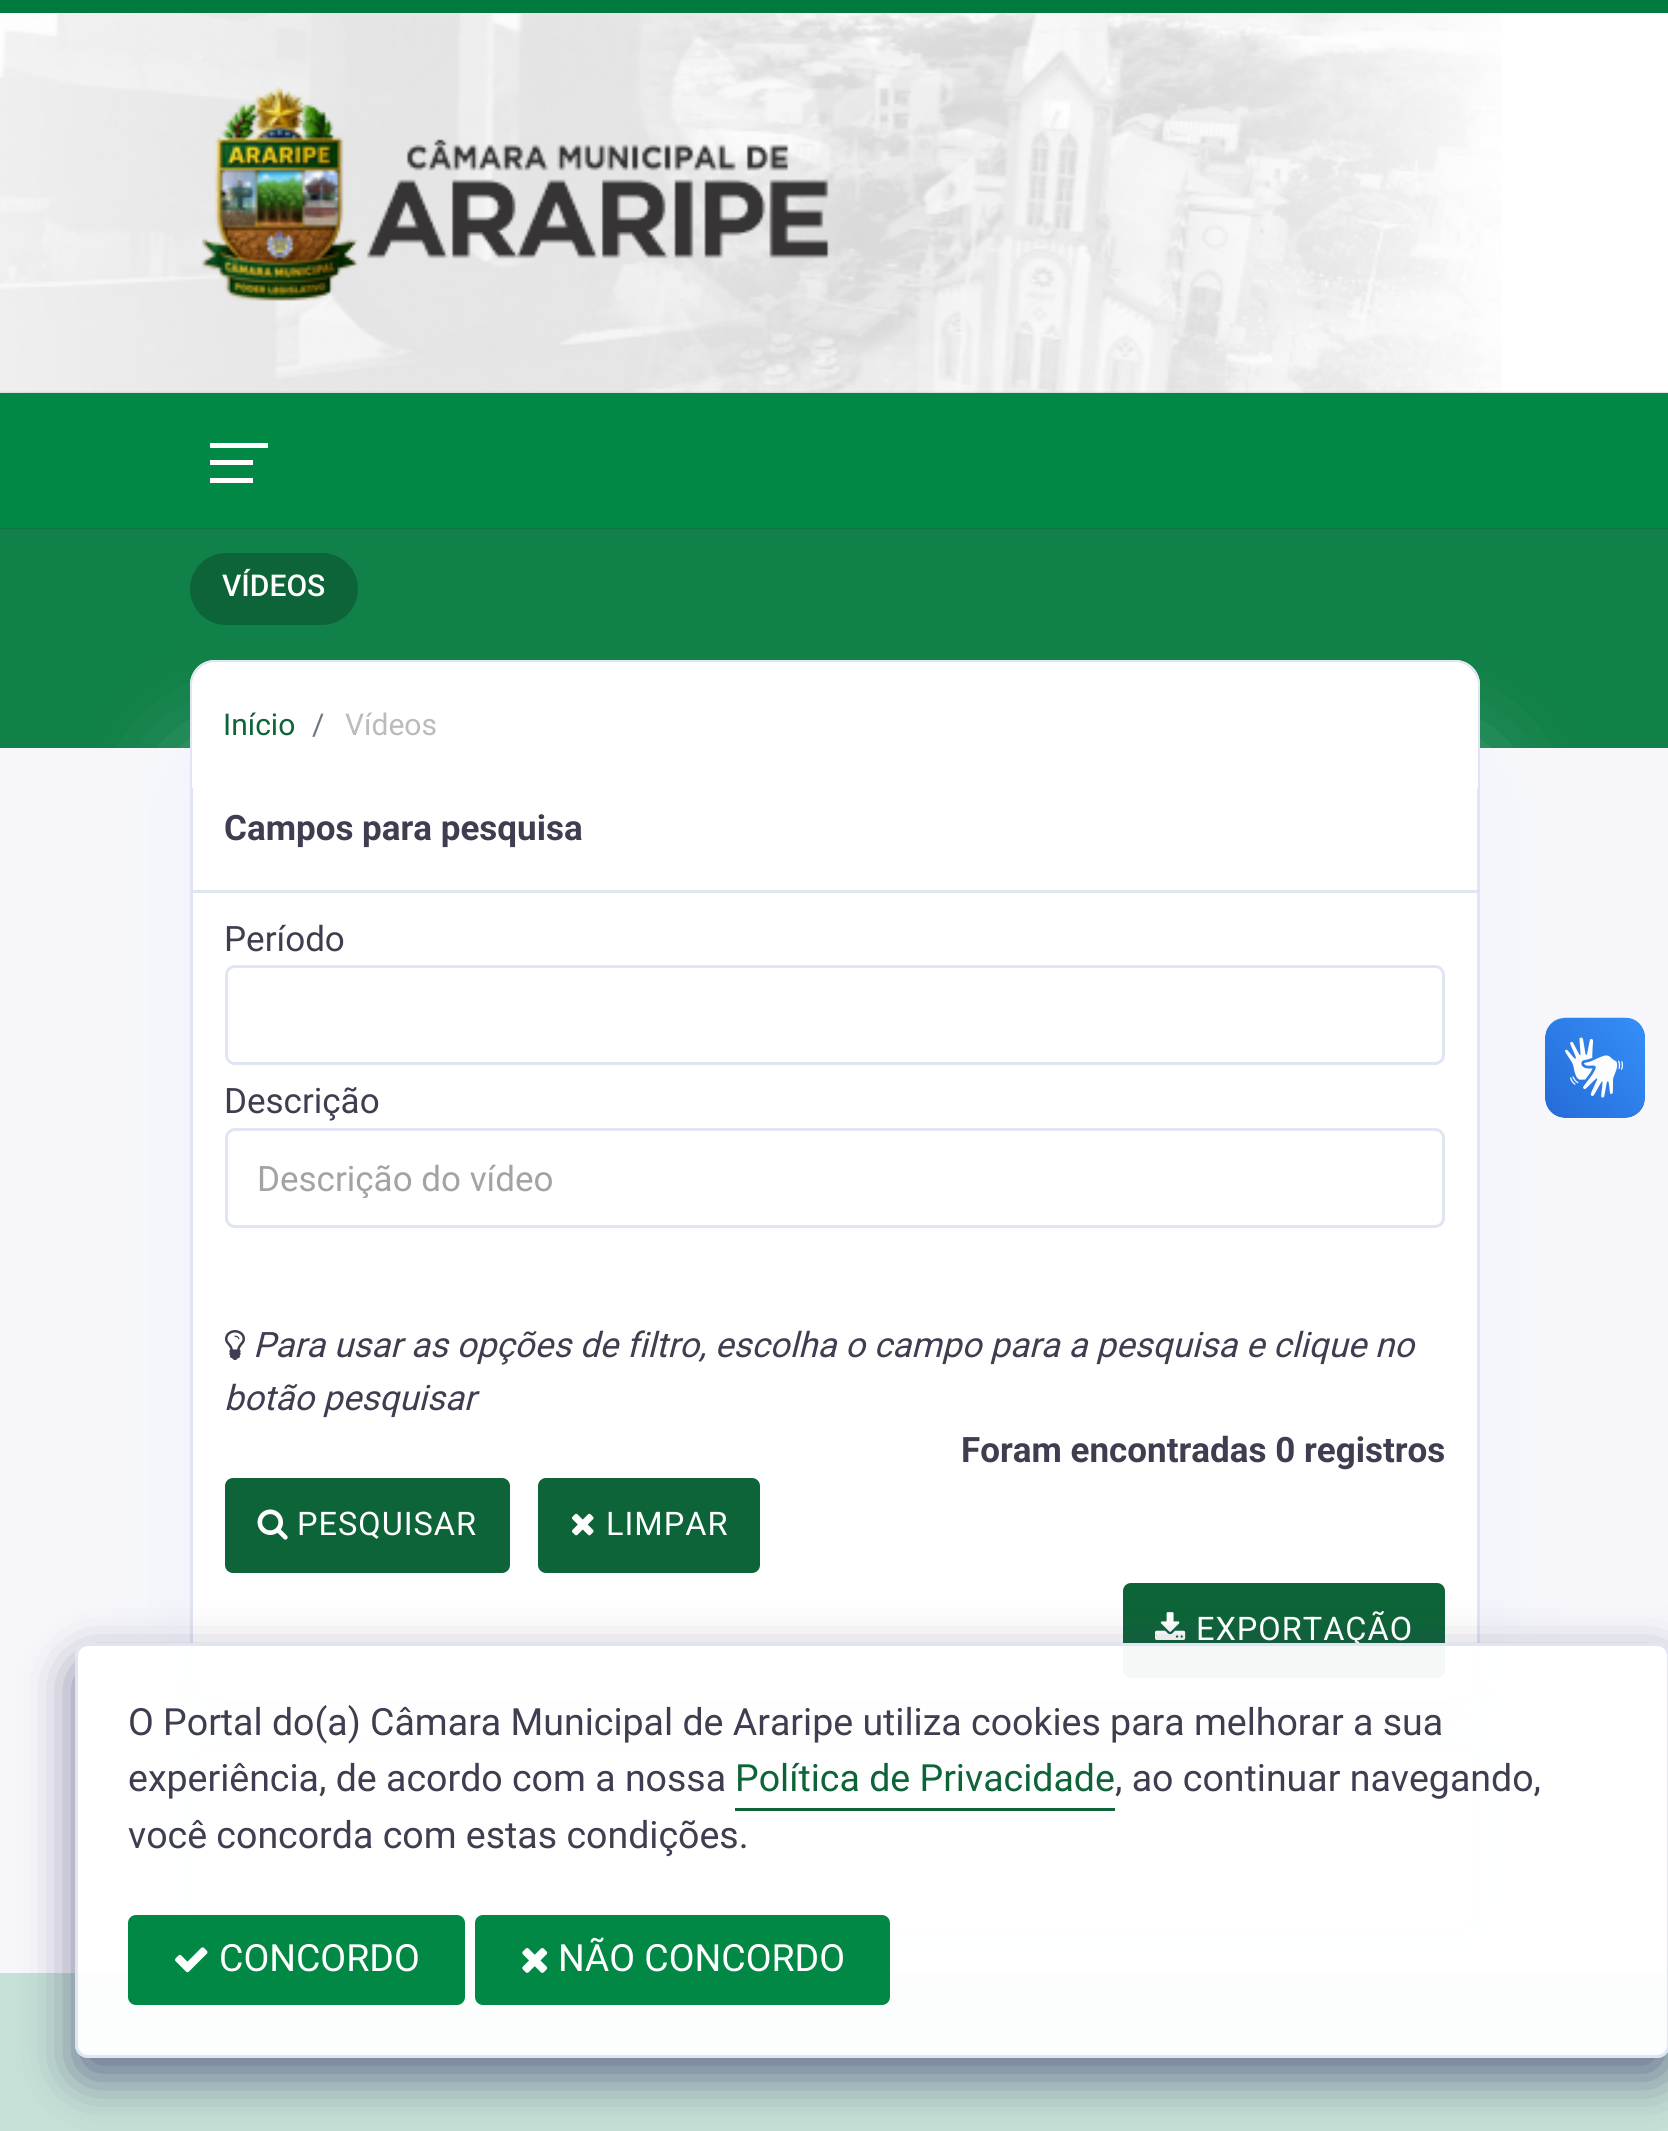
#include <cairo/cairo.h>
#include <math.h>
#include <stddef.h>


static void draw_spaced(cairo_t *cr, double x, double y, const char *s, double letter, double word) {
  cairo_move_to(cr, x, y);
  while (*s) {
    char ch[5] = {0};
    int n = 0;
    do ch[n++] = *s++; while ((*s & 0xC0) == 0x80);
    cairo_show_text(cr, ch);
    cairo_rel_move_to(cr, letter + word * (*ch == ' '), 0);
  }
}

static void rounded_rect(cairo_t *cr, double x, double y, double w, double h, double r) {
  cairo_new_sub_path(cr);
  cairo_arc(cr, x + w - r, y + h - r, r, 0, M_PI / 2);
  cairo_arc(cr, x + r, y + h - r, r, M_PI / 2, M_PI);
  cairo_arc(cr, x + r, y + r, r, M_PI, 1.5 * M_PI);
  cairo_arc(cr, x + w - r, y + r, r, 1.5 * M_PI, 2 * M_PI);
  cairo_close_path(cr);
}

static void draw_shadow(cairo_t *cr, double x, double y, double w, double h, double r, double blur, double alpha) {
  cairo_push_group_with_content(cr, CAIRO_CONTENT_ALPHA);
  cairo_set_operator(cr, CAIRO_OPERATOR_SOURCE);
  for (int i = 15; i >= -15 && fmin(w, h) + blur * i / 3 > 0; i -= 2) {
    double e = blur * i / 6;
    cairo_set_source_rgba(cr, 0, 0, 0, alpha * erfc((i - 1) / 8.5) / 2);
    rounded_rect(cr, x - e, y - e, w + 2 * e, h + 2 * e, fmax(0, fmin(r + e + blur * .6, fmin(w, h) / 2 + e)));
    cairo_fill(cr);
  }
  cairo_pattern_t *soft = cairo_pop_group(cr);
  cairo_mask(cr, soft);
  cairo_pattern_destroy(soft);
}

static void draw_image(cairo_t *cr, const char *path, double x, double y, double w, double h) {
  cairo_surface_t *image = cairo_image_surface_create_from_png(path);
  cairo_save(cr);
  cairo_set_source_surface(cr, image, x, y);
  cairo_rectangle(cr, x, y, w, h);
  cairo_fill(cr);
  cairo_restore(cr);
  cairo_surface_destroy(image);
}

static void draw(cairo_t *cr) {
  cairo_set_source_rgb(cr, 247 / 255.0, 247 / 255.0, 251 / 255.0);
  cairo_paint(cr);
  cairo_set_source_rgb(cr, 1, 1, 1);
  cairo_rectangle(cr, 0, 13, 1668, 380);
  cairo_fill(cr);
  draw_image(cr, "images/1.png", 0, 13, 1502, 380);
  cairo_set_source_rgb(cr, 0, 122 / 255.0, 61 / 255.0);
  cairo_rectangle(cr, 0, 0, 1668, 13);
  cairo_fill(cr);
  draw_image(cr, "images/2.png", 201, 85, 628, 216);
  cairo_set_source_rgb(cr, 16 / 255.0, 129 / 255.0, 72 / 255.0);
  cairo_rectangle(cr, 0, 528, 1668, 220);
  cairo_fill(cr);
  cairo_set_source_rgb(cr, 0, 0, 0);
  draw_shadow(cr, 0, 393, 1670, 135, 0, 1, 0.3);
  cairo_set_source_rgb(cr, 0, 136 / 255.0, 68 / 255.0);
  cairo_rectangle(cr, 0, 393, 1668, 135);
  cairo_fill(cr);
  cairo_set_source_rgb(cr, 1, 1, 1);
  cairo_rectangle(cr, 210, 460, 43, 5);
  cairo_fill(cr);
  cairo_rectangle(cr, 210, 443, 58, 5);
  cairo_fill(cr);
  cairo_rectangle(cr, 210, 478, 43, 5);
  cairo_fill(cr);
  cairo_set_source_rgb(cr, 13 / 255.0, 100 / 255.0, 56 / 255.0);
  rounded_rect(cr, 190, 553, 168, 72, 36);
  cairo_fill(cr);
  cairo_set_source_rgb(cr, 234 / 255.0, 238 / 255.0, 249 / 255.0);
  draw_shadow(cr, 190, 763, 1290, 940, 25, 50, 0.5);
  cairo_set_source_rgb(cr, 1, 1, 1);
  rounded_rect(cr, 191.5, 764.5, 1287, 937, 23.5);
  cairo_fill_preserve(cr);
  cairo_set_source_rgb(cr, 224 / 255.0, 229 / 255.0, 243 / 255.0);
  cairo_set_line_width(cr, 3);
  cairo_stroke(cr);
  cairo_set_source_rgb(cr, 1, 1, 1);
  cairo_new_path(cr);
  cairo_move_to(cr, 215, 660);
  cairo_line_to(cr, 1455, 660);
  cairo_curve_to(cr, 1469, 660, 1480, 671, 1480, 685);
  cairo_line_to(cr, 1480, 788);
  cairo_line_to(cr, 190, 788);
  cairo_line_to(cr, 190, 685);
  cairo_curve_to(cr, 190, 671, 201, 660, 215, 660);
  cairo_close_path(cr);
  cairo_fill(cr);
  cairo_set_source_rgb(cr, 224 / 255.0, 229 / 255.0, 243 / 255.0);
  cairo_set_fill_rule(cr, CAIRO_FILL_RULE_EVEN_ODD);
  cairo_new_path(cr);
  cairo_move_to(cr, 215, 660);
  cairo_line_to(cr, 1455, 660);
  cairo_curve_to(cr, 1469, 660, 1480, 671, 1480, 685);
  cairo_line_to(cr, 1480, 788);
  cairo_line_to(cr, 190, 788);
  cairo_line_to(cr, 190, 685);
  cairo_curve_to(cr, 190, 671, 201, 660, 215, 660);
  cairo_close_path(cr);
  cairo_move_to(cr, 215, 662);
  cairo_line_to(cr, 1455, 662);
  cairo_curve_to(cr, 1467, 662, 1478, 673, 1478, 685);
  cairo_line_to(cr, 1478, 788);
  cairo_line_to(cr, 192, 788);
  cairo_line_to(cr, 192, 685);
  cairo_curve_to(cr, 192, 673, 203, 662, 215, 662);
  cairo_close_path(cr);
  cairo_fill(cr);
  cairo_rectangle(cr, 193, 890, 1285, 3);
  cairo_fill(cr);
  rounded_rect(cr, 226.5, 966.5, 1217, 97, 8.5);
  cairo_stroke(cr);
  rounded_rect(cr, 226.5, 1129.5, 1217, 97, 8.5);
  cairo_stroke(cr);
  draw_image(cr, "images/3.png", 225, 1330, 20, 30);
  cairo_set_source_rgb(cr, 13 / 255.0, 100 / 255.0, 56 / 255.0);
  rounded_rect(cr, 226.5, 1479.5, 282, 92, 6.5);
  cairo_fill_preserve(cr);
  cairo_stroke(cr);
  draw_image(cr, "images/4.png", 257, 1509, 31, 31);
  rounded_rect(cr, 539.5, 1479.5, 219, 92, 6.5);
  cairo_fill_preserve(cr);
  cairo_stroke(cr);
  draw_image(cr, "images/5.png", 572, 1513, 22, 23);
  rounded_rect(cr, 1124.5, 1584.5, 319, 92, 6.5);
  cairo_fill_preserve(cr);
  cairo_stroke(cr);
  draw_image(cr, "images/6.png", 1155, 1612, 31, 28);
  cairo_set_source_rgb(cr, 198 / 255.0, 225 / 255.0, 215 / 255.0);
  cairo_rectangle(cr, 0, 1973, 1668, 158);
  cairo_fill(cr);
  cairo_set_source_rgb(cr, 234 / 255.0, 238 / 255.0, 249 / 255.0);
  draw_shadow(cr, 190, 1743, 1290, 190, 25, 50, 0.5);
  cairo_set_source_rgb(cr, 1, 1, 1);
  rounded_rect(cr, 191.5, 1744.5, 1287, 187, 23.5);
  cairo_fill_preserve(cr);
  cairo_set_source_rgb(cr, 224 / 255.0, 229 / 255.0, 243 / 255.0);
  cairo_stroke(cr);
  draw_image(cr, "images/7.png", 1545, 1017, 100, 101);
  draw_image(cr, "images/8.png", 1545, 1018, 100, 100);
  cairo_save(cr);
  cairo_new_path(cr);
  cairo_move_to(cr, 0, 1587);
  cairo_line_to(cr, 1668, 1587);
  cairo_line_to(cr, 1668, 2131);
  cairo_line_to(cr, 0, 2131);
  cairo_close_path(cr);
  cairo_move_to(cr, 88, 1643);
  cairo_line_to(cr, 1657, 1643);
  cairo_curve_to(cr, 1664, 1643, 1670, 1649, 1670, 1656);
  cairo_line_to(cr, 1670, 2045);
  cairo_curve_to(cr, 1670, 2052, 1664, 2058, 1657, 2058);
  cairo_line_to(cr, 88, 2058);
  cairo_curve_to(cr, 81, 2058, 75, 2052, 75, 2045);
  cairo_line_to(cr, 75, 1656);
  cairo_curve_to(cr, 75, 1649, 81, 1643, 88, 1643);
  cairo_close_path(cr);
  cairo_clip(cr);
  cairo_set_source_rgb(cr, 40 / 255.0, 37 / 255.0, 89 / 255.0);
  draw_shadow(cr, 75, 1663, 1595, 415, 13, 25, 0.6);
  cairo_restore(cr);
  cairo_select_font_face(cr, "Roboto Medium", CAIRO_FONT_SLANT_NORMAL, CAIRO_FONT_WEIGHT_NORMAL);
  cairo_set_font_size(cr, 30);
  cairo_set_source_rgb(cr, 1, 1, 1);
  cairo_move_to(cr, 222, 596);
  cairo_show_text(cr, "VÍDEOS");
  cairo_select_font_face(cr, "Roboto", CAIRO_FONT_SLANT_NORMAL, CAIRO_FONT_WEIGHT_NORMAL);
  cairo_set_source_rgb(cr, 13 / 255.0, 100 / 255.0, 56 / 255.0);
  cairo_move_to(cr, 223, 735);
  cairo_show_text(cr, "Início");
  cairo_set_source_rgb(cr, 108 / 255.0, 117 / 255.0, 125 / 255.0);
  cairo_move_to(cr, 312, 735);
  cairo_show_text(cr, "/");
  cairo_set_source_rgb(cr, 187 / 255.0, 187 / 255.0, 187 / 255.0);
  cairo_move_to(cr, 345, 735);
  cairo_show_text(cr, "Vídeos");
  cairo_select_font_face(cr, "Roboto", CAIRO_FONT_SLANT_NORMAL, CAIRO_FONT_WEIGHT_BOLD);
  cairo_set_font_size(cr, 35);
  cairo_set_source_rgb(cr, 63 / 255.0, 62 / 255.0, 80 / 255.0);
  cairo_move_to(cr, 224, 840);
  cairo_show_text(cr, "Campos para pesquisa");
  cairo_select_font_face(cr, "Roboto", CAIRO_FONT_SLANT_NORMAL, CAIRO_FONT_WEIGHT_NORMAL);
  cairo_move_to(cr, 224, 951);
  cairo_show_text(cr, "Período");
  cairo_move_to(cr, 224, 1113);
  cairo_show_text(cr, "Descrição");
  cairo_save(cr);
  cairo_set_fill_rule(cr, CAIRO_FILL_RULE_WINDING);
  cairo_rectangle(cr, 258, 1158, 1155, 40);
  cairo_clip(cr);
  cairo_set_source_rgb(cr, 163 / 255.0, 163 / 255.0, 163 / 255.0);
  cairo_move_to(cr, 257, 1191);
  cairo_show_text(cr, "Descrição do vídeo");
  cairo_restore(cr);
  cairo_select_font_face(cr, "Roboto", CAIRO_FONT_SLANT_ITALIC, CAIRO_FONT_WEIGHT_NORMAL);
  cairo_move_to(cr, 253, 1357);
  cairo_show_text(cr, "Para usar as opções de filtro, escolha o campo para a pesquisa e clique no");
  cairo_move_to(cr, 224, 1410);
  cairo_show_text(cr, "botão pesquisar");
  cairo_select_font_face(cr, "Roboto", CAIRO_FONT_SLANT_NORMAL, CAIRO_FONT_WEIGHT_BOLD);
  cairo_move_to(cr, 961, 1462);
  cairo_show_text(cr, "Foram encontradas 0 registros");
  cairo_select_font_face(cr, "Roboto", CAIRO_FONT_SLANT_NORMAL, CAIRO_FONT_WEIGHT_NORMAL);
  cairo_set_font_size(cr, 32.5);
  cairo_set_source_rgb(cr, 1, 1, 1);
  draw_spaced(cr, 297, 1535, "PESQUISAR", 1, 0);
  draw_spaced(cr, 606, 1535, "LIMPAR", 1, 0);
  draw_spaced(cr, 1196, 1640, "EXPORTAÇÃO", 1, 0);
  cairo_set_source_rgba(cr, 1, 1, 1, 0.95);
  rounded_rect(cr, 76.5, 1644.5, 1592, 412, 11.5);
  cairo_fill_preserve(cr);
  cairo_set_source_rgb(cr, 224 / 255.0, 229 / 255.0, 243 / 255.0);
  cairo_stroke(cr);
  cairo_set_font_size(cr, 37.5);
  cairo_set_source_rgb(cr, 63 / 255.0, 62 / 255.0, 80 / 255.0);
  cairo_move_to(cr, 128, 1735);
  cairo_show_text(cr, "O Portal do(a) Câmara Municipal de Araripe utiliza cookies para melhorar a sua");
  cairo_move_to(cr, 128, 1791);
  cairo_show_text(cr, "experiência, de acordo com a nossa");
  cairo_set_source_rgb(cr, 13 / 255.0, 100 / 255.0, 56 / 255.0);
  cairo_move_to(cr, 735, 1791);
  cairo_show_text(cr, "Política de Privacidade");
  cairo_rectangle(cr, 735, 1808, 380, 3);
  cairo_fill(cr);
  cairo_set_source_rgb(cr, 63 / 255.0, 62 / 255.0, 80 / 255.0);
  cairo_move_to(cr, 1115, 1791);
  cairo_show_text(cr, ", ao continuar navegando,");
  cairo_move_to(cr, 128, 1848);
  cairo_show_text(cr, "você concorda com estas condições.");
  cairo_set_source_rgb(cr, 0, 136 / 255.0, 68 / 255.0);
  rounded_rect(cr, 128, 1915, 337, 90, 8);
  cairo_fill(cr);
  draw_image(cr, "images/9.png", 175, 1947, 33, 26);
  cairo_set_source_rgb(cr, 1, 1, 1);
  cairo_move_to(cr, 219, 1971);
  cairo_show_text(cr, "CONCORDO");
  cairo_set_source_rgb(cr, 0, 136 / 255.0, 68 / 255.0);
  rounded_rect(cr, 475, 1915, 415, 90, 8);
  cairo_fill(cr);
  draw_image(cr, "images/10.png", 522, 1948, 26, 25);
  cairo_set_source_rgb(cr, 1, 1, 1);
  cairo_move_to(cr, 558, 1971);
  cairo_show_text(cr, "NÃO CONCORDO");
}

int main(void) {
  cairo_surface_t *surface = cairo_image_surface_create(CAIRO_FORMAT_RGB24, 1668, 2131);
  cairo_t *cr = cairo_create(surface);
  cairo_font_options_t *options = cairo_font_options_create();
  cairo_font_options_set_hint_metrics(options, CAIRO_HINT_METRICS_OFF);
  cairo_font_options_set_hint_style(options, CAIRO_HINT_STYLE_NONE);
  cairo_set_font_options(cr, options);
  cairo_set_miter_limit(cr, 4);
  draw(cr);
  cairo_surface_write_to_png(surface, "out.png");
  cairo_font_options_destroy(options);
  cairo_destroy(cr);
  cairo_surface_destroy(surface);
  return 0;
}
